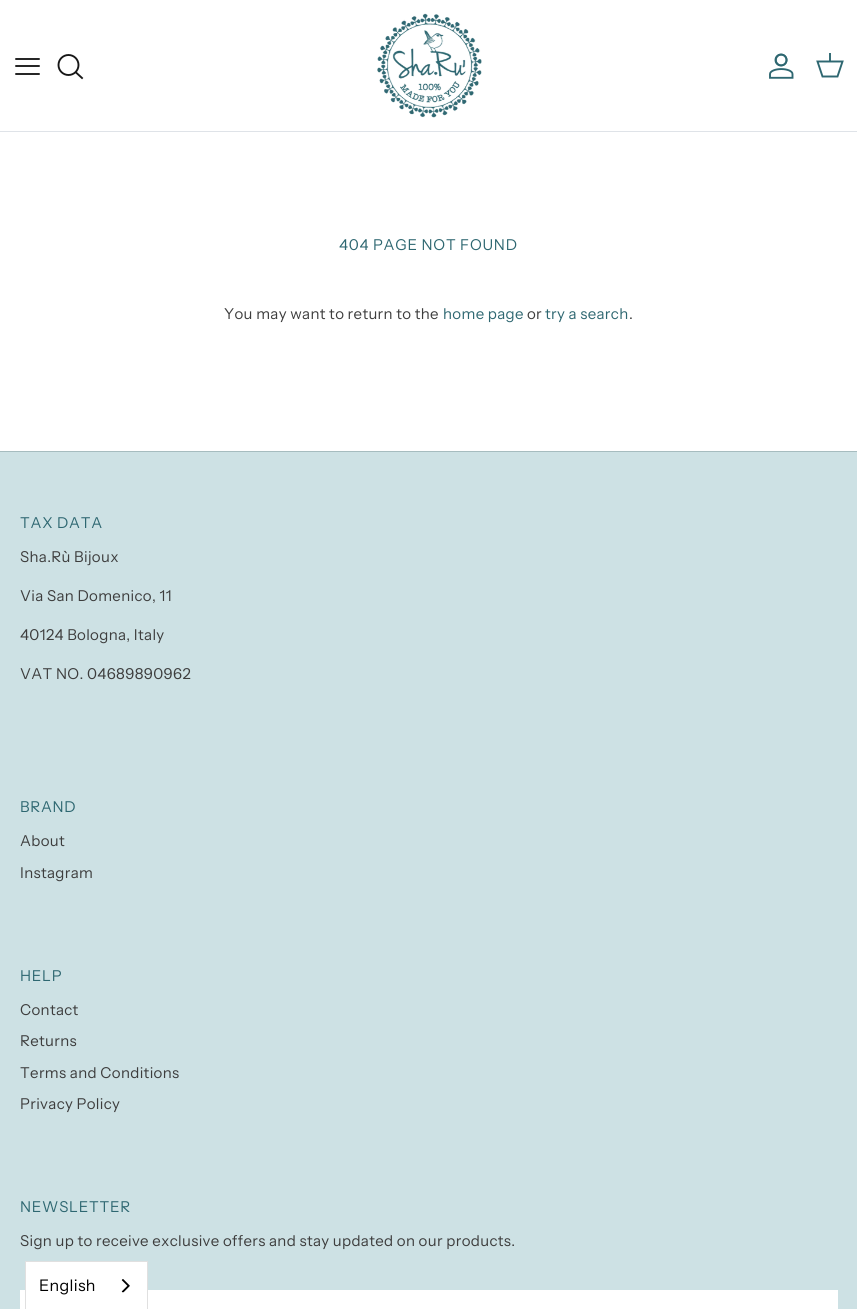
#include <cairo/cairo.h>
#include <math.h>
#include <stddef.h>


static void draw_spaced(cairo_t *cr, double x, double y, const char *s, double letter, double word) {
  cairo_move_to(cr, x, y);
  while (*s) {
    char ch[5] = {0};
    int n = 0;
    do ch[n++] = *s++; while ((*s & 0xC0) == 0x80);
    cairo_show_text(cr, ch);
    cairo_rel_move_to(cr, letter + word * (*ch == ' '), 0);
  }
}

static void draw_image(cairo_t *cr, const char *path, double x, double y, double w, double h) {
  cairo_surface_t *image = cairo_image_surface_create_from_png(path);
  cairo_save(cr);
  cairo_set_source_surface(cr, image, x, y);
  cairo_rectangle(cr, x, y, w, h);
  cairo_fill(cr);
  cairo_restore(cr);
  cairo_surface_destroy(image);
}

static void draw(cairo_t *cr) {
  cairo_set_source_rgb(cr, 1, 1, 1);
  cairo_paint(cr);
  cairo_set_source_rgb(cr, 223 / 255.0, 227 / 255.0, 232 / 255.0);
  cairo_rectangle(cr, 0, 131, 857, 1);
  cairo_fill(cr);
  cairo_new_path(cr);
  cairo_move_to(cr, 16, 66);
  cairo_line_to(cr, 39, 66);
  cairo_move_to(cr, 16, 59);
  cairo_line_to(cr, 39, 59);
  cairo_move_to(cr, 16, 74);
  cairo_line_to(cr, 39, 74);
  cairo_set_source_rgb(cr, 23 / 255.0, 23 / 255.0, 23 / 255.0);
  cairo_set_line_width(cr, 1.9);
  cairo_set_line_cap(cr, CAIRO_LINE_CAP_ROUND);
  cairo_set_line_join(cr, CAIRO_LINE_JOIN_ROUND);
  cairo_stroke(cr);
  cairo_arc(cr, 68.5, 65, 10, 0, 2 * M_PI);
  cairo_set_line_cap(cr, CAIRO_LINE_CAP_BUTT);
  cairo_set_line_join(cr, CAIRO_LINE_JOIN_MITER);
  cairo_stroke(cr);
  cairo_new_path(cr);
  cairo_move_to(cr, 76, 72.5);
  cairo_line_to(cr, 82, 78);
  cairo_set_line_cap(cr, CAIRO_LINE_CAP_SQUARE);
  cairo_stroke(cr);
  draw_image(cr, "images/1.png", 377, 13, 105, 105);
  draw_image(cr, "images/2.png", 769, 53, 25, 26);
  cairo_new_path(cr);
  cairo_move_to(cr, 817.5, 61.5);
  cairo_line_to(cr, 842.5, 61.5);
  cairo_line_to(cr, 837.5, 76.5);
  cairo_line_to(cr, 822.5, 76.5);
  cairo_close_path(cr);
  cairo_set_source_rgb(cr, 46 / 255.0, 103 / 255.0, 113 / 255.0);
  cairo_set_line_cap(cr, CAIRO_LINE_CAP_BUTT);
  cairo_stroke(cr);
  cairo_set_source_rgba(cr, 46 / 255.0, 103 / 255.0, 113 / 255.0, 0.95);
  cairo_rectangle(cr, 829, 53, 2, 9);
  cairo_fill(cr);
  cairo_set_source_rgb(cr, 205 / 255.0, 225 / 255.0, 228 / 255.0);
  cairo_rectangle(cr, 0, 452, 857, 857);
  cairo_fill(cr);
  cairo_set_source_rgb(cr, 166 / 255.0, 188 / 255.0, 191 / 255.0);
  cairo_rectangle(cr, 0, 451, 857, 1);
  cairo_fill(cr);
  cairo_set_source_rgb(cr, 1, 1, 1);
  cairo_rectangle(cr, 20, 1290, 818, 19);
  cairo_fill(cr);
  cairo_rectangle(cr, 26, 1262, 121, 28);
  cairo_fill(cr);
  cairo_rectangle(cr, 25.5, 1261.5, 122, 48);
  cairo_set_source_rgb(cr, 224 / 255.0, 224 / 255.0, 224 / 255.0);
  cairo_set_line_width(cr, 1);
  cairo_stroke(cr);
  draw_image(cr, "images/3.png", 121, 1279, 9, 14);
  cairo_select_font_face(cr, "Instrument Sans", CAIRO_FONT_SLANT_NORMAL, CAIRO_FONT_WEIGHT_NORMAL);
  cairo_set_font_size(cr, 15);
  cairo_set_source_rgb(cr, 46 / 255.0, 103 / 255.0, 113 / 255.0);
  draw_spaced(cr, 339, 250, "404 PAGE NOT FOUND", 0.75, 0);
  cairo_set_source_rgb(cr, 61 / 255.0, 61 / 255.0, 61 / 255.0);
  draw_spaced(cr, 224, 319, "You may want to return to the", 0.35, 0);
  cairo_set_source_rgb(cr, 46 / 255.0, 103 / 255.0, 113 / 255.0);
  draw_spaced(cr, 443, 319, "home page", 0.35, 0);
  cairo_set_source_rgb(cr, 61 / 255.0, 61 / 255.0, 61 / 255.0);
  draw_spaced(cr, 527, 319, "or", 0.35, 0);
  cairo_set_source_rgb(cr, 46 / 255.0, 103 / 255.0, 113 / 255.0);
  draw_spaced(cr, 545, 319, "try a search", 0.35, 0);
  cairo_set_source_rgb(cr, 61 / 255.0, 61 / 255.0, 61 / 255.0);
  draw_spaced(cr, 629, 319, ".", 0.35, 0);
  cairo_set_source_rgb(cr, 46 / 255.0, 103 / 255.0, 113 / 255.0);
  draw_spaced(cr, 20, 528, "TAX DATA", 0.75, 0);
  cairo_set_source_rgb(cr, 61 / 255.0, 61 / 255.0, 61 / 255.0);
  draw_spaced(cr, 20, 562, "Sha.Rù Bijoux", 0.35, 0);
  draw_spaced(cr, 20, 601, "Via San Domenico, 11", 0.35, 0);
  draw_spaced(cr, 20, 640, "40124 Bologna, Italy", 0.35, 0);
  draw_spaced(cr, 20, 679, "VAT NO. 04689890962", 0.35, 0);
  cairo_set_source_rgb(cr, 46 / 255.0, 103 / 255.0, 113 / 255.0);
  draw_spaced(cr, 20, 812, "BRAND", 0.75, 0);
  cairo_set_source_rgb(cr, 61 / 255.0, 61 / 255.0, 61 / 255.0);
  draw_spaced(cr, 20, 846, "About", 0.35, 0);
  draw_spaced(cr, 20, 878, "Instagram", 0.35, 0);
  cairo_set_source_rgb(cr, 46 / 255.0, 103 / 255.0, 113 / 255.0);
  draw_spaced(cr, 20, 981, "HELP", 0.75, 0);
  cairo_set_source_rgb(cr, 61 / 255.0, 61 / 255.0, 61 / 255.0);
  draw_spaced(cr, 20, 1015, "Contact", 0.35, 0);
  draw_spaced(cr, 20, 1046, "Returns", 0.35, 0);
  draw_spaced(cr, 20, 1078, "Terms and Conditions", 0.35, 0);
  draw_spaced(cr, 20, 1109, "Privacy Policy", 0.35, 0);
  cairo_set_source_rgb(cr, 46 / 255.0, 103 / 255.0, 113 / 255.0);
  draw_spaced(cr, 20, 1212, "NEWSLETTER", 0.75, 0);
  cairo_set_source_rgb(cr, 61 / 255.0, 61 / 255.0, 61 / 255.0);
  draw_spaced(cr, 20, 1246, "Sign up to receive exclusive offers and stay updated on our products.", 0.35, 0);
  cairo_set_font_size(cr, 16);
  cairo_set_source_rgb(cr, 0, 0, 0);
  draw_spaced(cr, 39, 1291, "English", 0.35, 0);
}

int main(void) {
  cairo_surface_t *surface = cairo_image_surface_create(CAIRO_FORMAT_RGB24, 857, 1309);
  cairo_t *cr = cairo_create(surface);
  cairo_font_options_t *options = cairo_font_options_create();
  cairo_font_options_set_hint_metrics(options, CAIRO_HINT_METRICS_OFF);
  cairo_font_options_set_hint_style(options, CAIRO_HINT_STYLE_NONE);
  cairo_set_font_options(cr, options);
  cairo_set_miter_limit(cr, 4);
  draw(cr);
  cairo_surface_write_to_png(surface, "out.png");
  cairo_font_options_destroy(options);
  cairo_destroy(cr);
  cairo_surface_destroy(surface);
  return 0;
}
